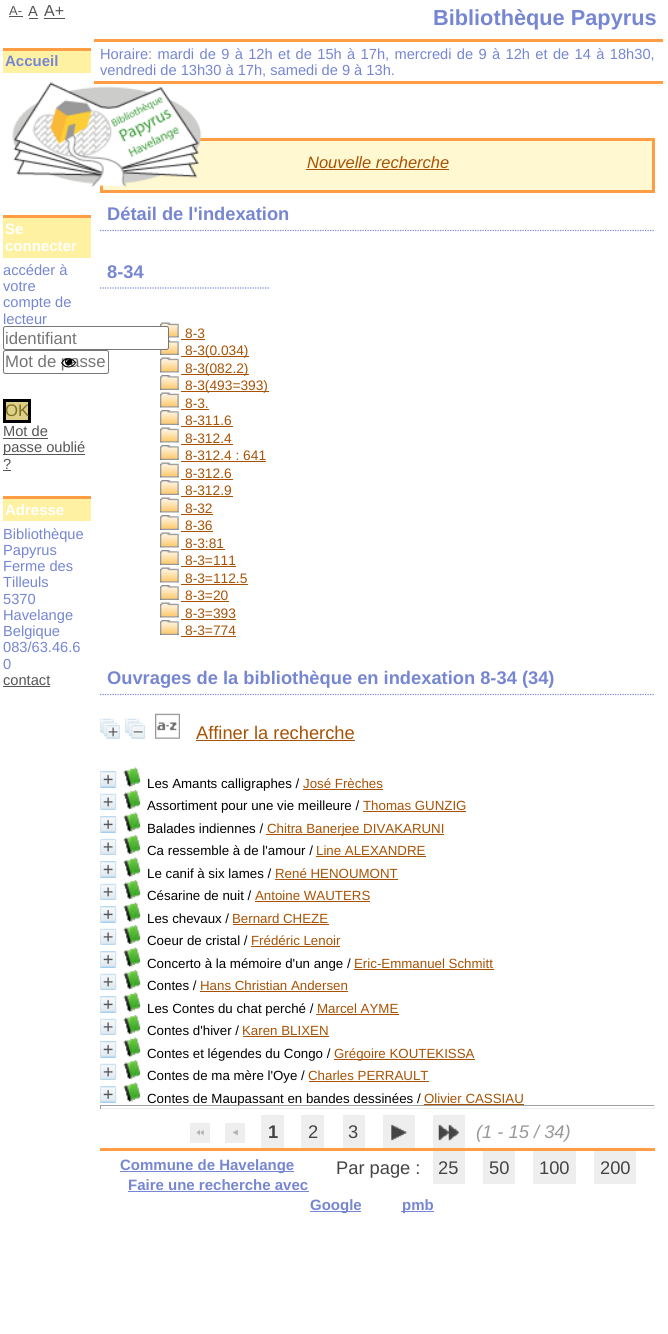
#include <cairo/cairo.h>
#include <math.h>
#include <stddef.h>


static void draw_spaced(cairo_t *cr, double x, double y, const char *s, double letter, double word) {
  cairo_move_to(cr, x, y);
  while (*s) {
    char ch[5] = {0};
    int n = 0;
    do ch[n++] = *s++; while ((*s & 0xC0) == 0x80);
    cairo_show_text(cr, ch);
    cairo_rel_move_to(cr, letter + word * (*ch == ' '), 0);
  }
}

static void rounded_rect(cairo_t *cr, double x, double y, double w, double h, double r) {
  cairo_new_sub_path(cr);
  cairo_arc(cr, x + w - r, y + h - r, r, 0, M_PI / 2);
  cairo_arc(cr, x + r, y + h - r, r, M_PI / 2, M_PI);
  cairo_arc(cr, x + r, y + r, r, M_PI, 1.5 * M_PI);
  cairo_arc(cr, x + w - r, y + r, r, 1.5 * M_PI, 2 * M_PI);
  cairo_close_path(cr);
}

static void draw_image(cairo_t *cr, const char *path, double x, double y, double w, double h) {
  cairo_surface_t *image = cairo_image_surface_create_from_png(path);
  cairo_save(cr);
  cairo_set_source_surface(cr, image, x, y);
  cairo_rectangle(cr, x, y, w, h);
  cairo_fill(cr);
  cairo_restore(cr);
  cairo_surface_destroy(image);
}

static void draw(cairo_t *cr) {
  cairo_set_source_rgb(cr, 1, 1, 1);
  cairo_paint(cr);
  cairo_set_source_rgb(cr, 85 / 255.0, 85 / 255.0, 85 / 255.0);
  cairo_rectangle(cr, 9, 16, 14, 1);
  cairo_fill(cr);
  cairo_rectangle(cr, 29, 18, 9, 1);
  cairo_fill(cr);
  cairo_rectangle(cr, 44, 18, 21, 1);
  cairo_fill(cr);
  cairo_set_source_rgb(cr, 1, 241 / 255.0, 162 / 255.0);
  cairo_rectangle(cr, 3, 51, 88, 22);
  cairo_fill(cr);
  cairo_set_source_rgb(cr, 254 / 255.0, 157 / 255.0, 67 / 255.0);
  cairo_rectangle(cr, 3, 48, 88, 3);
  cairo_fill(cr);
  cairo_rectangle(cr, 94, 81, 569, 3);
  cairo_fill(cr);
  cairo_set_source_rgb(cr, 1, 248 / 255.0, 209 / 255.0);
  cairo_rectangle(cr, 101.5, 139.5, 552, 52);
  cairo_fill_preserve(cr);
  cairo_set_source_rgb(cr, 254 / 255.0, 157 / 255.0, 67 / 255.0);
  cairo_set_line_width(cr, 3);
  cairo_stroke(cr);
  draw_image(cr, "images/1.png", 12, 82, 190, 105);
  cairo_set_source_rgb(cr, 1, 241 / 255.0, 162 / 255.0);
  cairo_rectangle(cr, 3, 218, 88, 40);
  cairo_fill(cr);
  cairo_set_source_rgb(cr, 254 / 255.0, 157 / 255.0, 67 / 255.0);
  cairo_rectangle(cr, 3, 215, 88, 3);
  cairo_fill(cr);
  draw_image(cr, "images/3.png", 160, 322, 19, 16);
  draw_image(cr, "images/4.png", 160, 340, 19, 15);
  cairo_set_source_rgb(cr, 1, 1, 1);
  rounded_rect(cr, 3.5, 326.5, 165, 23, 2);
  cairo_fill_preserve(cr);
  cairo_set_source_rgb(cr, 118 / 255.0, 118 / 255.0, 118 / 255.0);
  cairo_set_line_width(cr, 1);
  cairo_stroke(cr);
  rounded_rect(cr, 3.5, 350.5, 105, 23, 2);
  cairo_stroke(cr);
  cairo_set_source_rgb(cr, 223 / 255.0, 208 / 255.0, 135 / 255.0);
  cairo_rectangle(cr, 4.5, 400.5, 25, 21);
  cairo_fill_preserve(cr);
  cairo_set_source_rgb(cr, 0, 0, 0);
  cairo_set_line_width(cr, 3);
  cairo_stroke(cr);
  cairo_set_source_rgb(cr, 85 / 255.0, 85 / 255.0, 85 / 255.0);
  cairo_rectangle(cr, 3, 438, 45, 1);
  cairo_fill(cr);
  cairo_rectangle(cr, 3, 454, 82, 1);
  cairo_fill(cr);
  cairo_rectangle(cr, 3, 470, 8, 1);
  cairo_fill(cr);
  cairo_set_source_rgb(cr, 1, 241 / 255.0, 162 / 255.0);
  cairo_rectangle(cr, 3, 499, 88, 22);
  cairo_fill(cr);
  cairo_set_source_rgb(cr, 254 / 255.0, 157 / 255.0, 67 / 255.0);
  cairo_rectangle(cr, 3, 496, 88, 3);
  cairo_fill(cr);
  cairo_set_source_rgb(cr, 85 / 255.0, 85 / 255.0, 85 / 255.0);
  cairo_rectangle(cr, 3, 686, 47, 1);
  cairo_fill(cr);
  cairo_set_source_rgb(cr, 254 / 255.0, 157 / 255.0, 67 / 255.0);
  cairo_rectangle(cr, 94, 39, 569, 3);
  cairo_fill(cr);
  cairo_set_source_rgb(cr, 167 / 255.0, 82 / 255.0, 4 / 255.0);
  cairo_rectangle(cr, 306, 169, 143, 1);
  cairo_fill(cr);
  cairo_new_path(cr);
  cairo_move_to(cr, 100, 230.5);
  cairo_line_to(cr, 655, 230.5);
  cairo_set_source_rgb(cr, 118 / 255.0, 134 / 255.0, 210 / 255.0);
  cairo_set_line_width(cr, 1.2);
  cairo_set_dash(cr, (double[]){1.25, 1.25}, 2, 0);
  cairo_stroke(cr);
  cairo_new_path(cr);
  cairo_move_to(cr, 100, 288);
  cairo_line_to(cr, 269, 288);
  cairo_stroke(cr);
  cairo_set_source_rgb(cr, 167 / 255.0, 82 / 255.0, 4 / 255.0);
  cairo_rectangle(cr, 181, 339, 24, 1);
  cairo_fill(cr);
  cairo_rectangle(cr, 181, 356, 68, 1);
  cairo_fill(cr);
  draw_image(cr, "images/3.png", 160, 357, 19, 16);
  cairo_rectangle(cr, 181, 374, 68, 1);
  cairo_fill(cr);
  draw_image(cr, "images/4.png", 160, 375, 19, 15);
  cairo_rectangle(cr, 181, 391, 88, 1);
  cairo_fill(cr);
  draw_image(cr, "images/3.png", 160, 392, 19, 16);
  cairo_rectangle(cr, 181, 409, 28, 1);
  cairo_fill(cr);
  draw_image(cr, "images/4.png", 160, 410, 19, 15);
  cairo_rectangle(cr, 181, 426, 52, 1);
  cairo_fill(cr);
  draw_image(cr, "images/3.png", 160, 427, 19, 16);
  cairo_rectangle(cr, 181, 444, 52, 1);
  cairo_fill(cr);
  draw_image(cr, "images/4.png", 160, 445, 19, 15);
  cairo_rectangle(cr, 181, 461, 85, 1);
  cairo_fill(cr);
  draw_image(cr, "images/3.png", 160, 462, 19, 16);
  cairo_rectangle(cr, 181, 479, 52, 1);
  cairo_fill(cr);
  draw_image(cr, "images/4.png", 160, 480, 19, 15);
  cairo_rectangle(cr, 181, 496, 52, 1);
  cairo_fill(cr);
  draw_image(cr, "images/3.png", 160, 497, 19, 16);
  cairo_rectangle(cr, 181, 514, 32, 1);
  cairo_fill(cr);
  draw_image(cr, "images/4.png", 160, 515, 19, 15);
  cairo_rectangle(cr, 181, 531, 32, 1);
  cairo_fill(cr);
  draw_image(cr, "images/3.png", 160, 532, 19, 16);
  cairo_rectangle(cr, 181, 549, 44, 1);
  cairo_fill(cr);
  draw_image(cr, "images/4.png", 160, 550, 19, 15);
  cairo_rectangle(cr, 181, 566, 55, 1);
  cairo_fill(cr);
  draw_image(cr, "images/3.png", 160, 567, 19, 16);
  cairo_rectangle(cr, 181, 584, 67, 1);
  cairo_fill(cr);
  draw_image(cr, "images/5.png", 160, 585, 19, 15);
  cairo_rectangle(cr, 181, 601, 48, 1);
  cairo_fill(cr);
  draw_image(cr, "images/3.png", 160, 602, 19, 16);
  cairo_rectangle(cr, 181, 619, 55, 1);
  cairo_fill(cr);
  draw_image(cr, "images/4.png", 160, 620, 19, 15);
  cairo_rectangle(cr, 181, 636, 55, 1);
  cairo_fill(cr);
  cairo_new_path(cr);
  cairo_move_to(cr, 100, 694.5);
  cairo_line_to(cr, 655, 694.5);
  cairo_set_source_rgb(cr, 118 / 255.0, 134 / 255.0, 210 / 255.0);
  cairo_stroke(cr);
  draw_image(cr, "images/6.png", 100, 718, 20, 21);
  draw_image(cr, "images/7.png", 125, 718, 20, 21);
  draw_image(cr, "images/8.png", 155, 713, 25, 26);
  cairo_set_source_rgb(cr, 167 / 255.0, 82 / 255.0, 4 / 255.0);
  cairo_rectangle(cr, 196, 740, 159, 1);
  cairo_fill(cr);
  cairo_set_source_rgb(cr, 140 / 255.0, 198 / 255.0, 1);
  cairo_rectangle(cr, 100, 771, 16, 17);
  cairo_fill(cr);
  draw_image(cr, "images/9.png", 123, 767, 18, 20);
  draw_image(cr, "images/10.png", 100, 771, 17, 17);
  cairo_set_source_rgb(cr, 167 / 255.0, 82 / 255.0, 4 / 255.0);
  cairo_rectangle(cr, 303, 789, 80, 1);
  cairo_fill(cr);
  draw_image(cr, "images/11.png", 100, 793, 17, 17);
  draw_image(cr, "images/12.png", 123, 790, 18, 19);
  cairo_rectangle(cr, 363, 811, 103, 1);
  cairo_fill(cr);
  cairo_set_source_rgb(cr, 140 / 255.0, 198 / 255.0, 1);
  cairo_rectangle(cr, 100, 816, 16, 17);
  cairo_fill(cr);
  draw_image(cr, "images/9.png", 123, 812, 18, 20);
  draw_image(cr, "images/10.png", 100, 816, 17, 17);
  cairo_set_source_rgb(cr, 167 / 255.0, 82 / 255.0, 4 / 255.0);
  cairo_rectangle(cr, 266, 834, 178, 1);
  cairo_fill(cr);
  draw_image(cr, "images/11.png", 100, 838, 17, 17);
  draw_image(cr, "images/12.png", 123, 835, 18, 19);
  cairo_rectangle(cr, 316, 856, 110, 1);
  cairo_fill(cr);
  cairo_set_source_rgb(cr, 140 / 255.0, 198 / 255.0, 1);
  cairo_rectangle(cr, 100, 861, 16, 17);
  cairo_fill(cr);
  draw_image(cr, "images/9.png", 123, 857, 18, 20);
  draw_image(cr, "images/10.png", 100, 861, 17, 17);
  cairo_set_source_rgb(cr, 167 / 255.0, 82 / 255.0, 4 / 255.0);
  cairo_rectangle(cr, 275, 879, 123, 1);
  cairo_fill(cr);
  draw_image(cr, "images/11.png", 100, 883, 17, 17);
  draw_image(cr, "images/12.png", 123, 880, 18, 19);
  cairo_rectangle(cr, 255, 901, 115, 1);
  cairo_fill(cr);
  cairo_set_source_rgb(cr, 140 / 255.0, 198 / 255.0, 1);
  cairo_rectangle(cr, 100, 906, 16, 17);
  cairo_fill(cr);
  draw_image(cr, "images/9.png", 123, 902, 18, 20);
  draw_image(cr, "images/10.png", 100, 906, 17, 17);
  cairo_set_source_rgb(cr, 167 / 255.0, 82 / 255.0, 4 / 255.0);
  cairo_rectangle(cr, 233, 924, 96, 1);
  cairo_fill(cr);
  draw_image(cr, "images/11.png", 100, 928, 17, 17);
  draw_image(cr, "images/12.png", 123, 925, 18, 19);
  cairo_rectangle(cr, 251, 946, 89, 1);
  cairo_fill(cr);
  cairo_set_source_rgb(cr, 140 / 255.0, 198 / 255.0, 1);
  cairo_rectangle(cr, 100, 951, 16, 17);
  cairo_fill(cr);
  draw_image(cr, "images/9.png", 123, 947, 18, 20);
  draw_image(cr, "images/10.png", 100, 951, 17, 17);
  cairo_set_source_rgb(cr, 167 / 255.0, 82 / 255.0, 4 / 255.0);
  cairo_rectangle(cr, 354, 969, 140, 1);
  cairo_fill(cr);
  draw_image(cr, "images/11.png", 100, 973, 17, 17);
  draw_image(cr, "images/12.png", 123, 970, 18, 19);
  cairo_rectangle(cr, 200, 991, 148, 1);
  cairo_fill(cr);
  cairo_set_source_rgb(cr, 140 / 255.0, 198 / 255.0, 1);
  cairo_rectangle(cr, 100, 996, 16, 17);
  cairo_fill(cr);
  draw_image(cr, "images/9.png", 123, 992, 18, 20);
  draw_image(cr, "images/10.png", 100, 996, 17, 17);
  cairo_set_source_rgb(cr, 167 / 255.0, 82 / 255.0, 4 / 255.0);
  cairo_rectangle(cr, 316, 1014, 83, 1);
  cairo_fill(cr);
  draw_image(cr, "images/11.png", 100, 1018, 17, 17);
  draw_image(cr, "images/12.png", 123, 1015, 18, 19);
  cairo_rectangle(cr, 243, 1036, 86, 1);
  cairo_fill(cr);
  cairo_set_source_rgb(cr, 140 / 255.0, 198 / 255.0, 1);
  cairo_rectangle(cr, 100, 1041, 16, 17);
  cairo_fill(cr);
  draw_image(cr, "images/9.png", 123, 1037, 18, 20);
  draw_image(cr, "images/10.png", 100, 1041, 17, 17);
  cairo_set_source_rgb(cr, 167 / 255.0, 82 / 255.0, 4 / 255.0);
  cairo_rectangle(cr, 334, 1059, 141, 1);
  cairo_fill(cr);
  draw_image(cr, "images/11.png", 100, 1063, 17, 17);
  draw_image(cr, "images/12.png", 123, 1060, 18, 19);
  cairo_rectangle(cr, 309, 1081, 120, 1);
  cairo_fill(cr);
  cairo_set_source_rgb(cr, 140 / 255.0, 198 / 255.0, 1);
  cairo_rectangle(cr, 100, 1086, 16, 17);
  cairo_fill(cr);
  draw_image(cr, "images/9.png", 123, 1082, 18, 20);
  draw_image(cr, "images/10.png", 100, 1086, 17, 17);
  cairo_set_source_rgb(cr, 167 / 255.0, 82 / 255.0, 4 / 255.0);
  cairo_rectangle(cr, 424, 1104, 100, 1);
  cairo_fill(cr);
  cairo_set_source_rgb(cr, 238 / 255.0, 238 / 255.0, 238 / 255.0);
  cairo_rectangle(cr, 190, 1123, 20, 20);
  cairo_fill(cr);
  draw_image(cr, "images/13.png", 196, 1129, 8, 7);
  cairo_rectangle(cr, 225, 1123, 20, 20);
  cairo_fill(cr);
  draw_image(cr, "images/14.png", 232, 1129, 6, 7);
  cairo_rectangle(cr, 261, 1115, 23, 33);
  cairo_fill(cr);
  cairo_rectangle(cr, 301, 1115, 23, 33);
  cairo_fill(cr);
  cairo_rectangle(cr, 343, 1115, 22, 33);
  cairo_fill(cr);
  cairo_rectangle(cr, 383, 1115, 32, 33);
  cairo_fill(cr);
  draw_image(cr, "images/15.png", 391, 1124, 16, 17);
  cairo_rectangle(cr, 433, 1115, 32, 33);
  cairo_fill(cr);
  draw_image(cr, "images/16.png", 438, 1124, 21, 17);
  cairo_rectangle(cr, 433, 1151, 32, 33);
  cairo_fill(cr);
  cairo_rectangle(cr, 483, 1151, 32, 33);
  cairo_fill(cr);
  cairo_rectangle(cr, 533, 1151, 43, 33);
  cairo_fill(cr);
  cairo_rectangle(cr, 594, 1151, 42, 33);
  cairo_fill(cr);
  cairo_set_source_rgb(cr, 254 / 255.0, 157 / 255.0, 67 / 255.0);
  cairo_rectangle(cr, 100, 1148, 555, 3);
  cairo_fill(cr);
  cairo_set_source_rgb(cr, 118 / 255.0, 134 / 255.0, 210 / 255.0);
  cairo_rectangle(cr, 120, 1171, 174, 1);
  cairo_fill(cr);
  cairo_rectangle(cr, 128, 1191, 181, 1);
  cairo_fill(cr);
  cairo_rectangle(cr, 310, 1211, 51, 1);
  cairo_fill(cr);
  cairo_rectangle(cr, 401, 1211, 33, 1);
  cairo_fill(cr);
  cairo_select_font_face(cr, "Liberation Sans", CAIRO_FONT_SLANT_NORMAL, CAIRO_FONT_WEIGHT_NORMAL);
  cairo_set_font_size(cr, 13);
  cairo_set_source_rgb(cr, 85 / 255.0, 85 / 255.0, 85 / 255.0);
  cairo_move_to(cr, 9, 15);
  cairo_show_text(cr, "A-");
  cairo_set_font_size(cr, 14.65);
  cairo_move_to(cr, 28, 16);
  cairo_show_text(cr, "A");
  cairo_set_font_size(cr, 16);
  cairo_move_to(cr, 44, 16);
  cairo_show_text(cr, "A+");
  cairo_select_font_face(cr, "Liberation Sans", CAIRO_FONT_SLANT_NORMAL, CAIRO_FONT_WEIGHT_BOLD);
  cairo_set_font_size(cr, 15);
  cairo_set_source_rgb(cr, 118 / 255.0, 134 / 255.0, 210 / 255.0);
  cairo_move_to(cr, 5, 66);
  cairo_show_text(cr, "Accueil");
  cairo_set_source_rgb(cr, 1, 1, 1);
  cairo_move_to(cr, 5, 234);
  cairo_show_text(cr, "Se");
  cairo_move_to(cr, 5, 251);
  cairo_show_text(cr, "connecter");
  cairo_select_font_face(cr, "Liberation Sans", CAIRO_FONT_SLANT_NORMAL, CAIRO_FONT_WEIGHT_NORMAL);
  cairo_set_font_size(cr, 14.65);
  cairo_set_source_rgb(cr, 118 / 255.0, 134 / 255.0, 210 / 255.0);
  cairo_move_to(cr, 3, 275);
  cairo_show_text(cr, "accéder à");
  cairo_move_to(cr, 3, 291);
  cairo_show_text(cr, "votre");
  cairo_move_to(cr, 3, 307);
  cairo_show_text(cr, "compte de");
  cairo_move_to(cr, 3, 324);
  cairo_show_text(cr, "lecteur");
  cairo_set_font_size(cr, 16.75);
  cairo_set_source_rgb(cr, 117 / 255.0, 117 / 255.0, 117 / 255.0);
  cairo_move_to(cr, 5, 344);
  cairo_show_text(cr, "identifiant");
  cairo_move_to(cr, 5, 367);
  cairo_show_text(cr, "Mot de passe");
  draw_image(cr, "images/2.png", 61, 358, 15, 10);
  cairo_set_source_rgb(cr, 127 / 255.0, 112 / 255.0, 39 / 255.0);
  cairo_move_to(cr, 5, 416);
  cairo_show_text(cr, "OK");
  cairo_set_font_size(cr, 14.65);
  cairo_set_source_rgb(cr, 85 / 255.0, 85 / 255.0, 85 / 255.0);
  cairo_move_to(cr, 3, 436);
  cairo_show_text(cr, "Mot de");
  cairo_move_to(cr, 3, 452);
  cairo_show_text(cr, "passe oublié");
  cairo_move_to(cr, 3, 469);
  cairo_show_text(cr, "?");
  cairo_select_font_face(cr, "Liberation Sans", CAIRO_FONT_SLANT_NORMAL, CAIRO_FONT_WEIGHT_BOLD);
  cairo_set_font_size(cr, 15);
  cairo_set_source_rgb(cr, 1, 1, 1);
  cairo_move_to(cr, 5, 515);
  cairo_show_text(cr, "Adresse");
  cairo_select_font_face(cr, "Liberation Sans", CAIRO_FONT_SLANT_NORMAL, CAIRO_FONT_WEIGHT_NORMAL);
  cairo_set_font_size(cr, 14.65);
  cairo_set_source_rgb(cr, 118 / 255.0, 134 / 255.0, 210 / 255.0);
  cairo_move_to(cr, 3, 539);
  cairo_show_text(cr, "Bibliothèque");
  cairo_move_to(cr, 3, 555);
  cairo_show_text(cr, "Papyrus");
  cairo_move_to(cr, 3, 571);
  cairo_show_text(cr, "Ferme des");
  cairo_move_to(cr, 3, 587);
  cairo_show_text(cr, "Tilleuls");
  cairo_move_to(cr, 3, 604);
  cairo_show_text(cr, "5370");
  cairo_move_to(cr, 3, 620);
  cairo_show_text(cr, "Havelange");
  cairo_move_to(cr, 3, 636);
  cairo_show_text(cr, "Belgique");
  cairo_move_to(cr, 3, 652);
  cairo_show_text(cr, "083/63.46.6");
  cairo_move_to(cr, 3, 669);
  cairo_show_text(cr, "0");
  cairo_set_source_rgb(cr, 85 / 255.0, 85 / 255.0, 85 / 255.0);
  cairo_move_to(cr, 3, 685);
  cairo_show_text(cr, "contact");
  cairo_select_font_face(cr, "Liberation Sans", CAIRO_FONT_SLANT_NORMAL, CAIRO_FONT_WEIGHT_BOLD);
  cairo_set_font_size(cr, 21.75);
  cairo_set_source_rgb(cr, 118 / 255.0, 134 / 255.0, 210 / 255.0);
  cairo_move_to(cr, 433, 25);
  cairo_show_text(cr, "Bibliothèque Papyrus");
  cairo_select_font_face(cr, "Liberation Sans", CAIRO_FONT_SLANT_NORMAL, CAIRO_FONT_WEIGHT_NORMAL);
  cairo_set_font_size(cr, 14.65);
  draw_spaced(cr, 100, 59, "Horaire: mardi de 9 à 12h et de 15h à 17h, mercredi de 9 à 12h et de 14 à 18h30,", 0, 1.3);
  cairo_move_to(cr, 100, 75);
  cairo_show_text(cr, "vendredi de 13h30 à 17h, samedi de 9 à 13h.");
  cairo_select_font_face(cr, "Liberation Sans", CAIRO_FONT_SLANT_ITALIC, CAIRO_FONT_WEIGHT_NORMAL);
  cairo_set_font_size(cr, 16.5);
  cairo_set_source_rgb(cr, 167 / 255.0, 82 / 255.0, 4 / 255.0);
  cairo_move_to(cr, 307, 168);
  cairo_show_text(cr, "Nouvelle recherche");
  cairo_select_font_face(cr, "Liberation Sans", CAIRO_FONT_SLANT_NORMAL, CAIRO_FONT_WEIGHT_BOLD);
  cairo_set_font_size(cr, 18.3);
  cairo_set_source_rgb(cr, 118 / 255.0, 134 / 255.0, 210 / 255.0);
  cairo_move_to(cr, 107, 220);
  cairo_show_text(cr, "Détail de l'indexation");
  cairo_move_to(cr, 107, 278);
  cairo_show_text(cr, "8-34");
  cairo_select_font_face(cr, "Liberation Sans", CAIRO_FONT_SLANT_NORMAL, CAIRO_FONT_WEIGHT_NORMAL);
  cairo_set_font_size(cr, 13.75);
  cairo_set_source_rgb(cr, 167 / 255.0, 82 / 255.0, 4 / 255.0);
  cairo_move_to(cr, 185, 338);
  cairo_show_text(cr, "8-3");
  cairo_move_to(cr, 185, 355);
  cairo_show_text(cr, "8-3(0.034)");
  cairo_move_to(cr, 185, 373);
  cairo_show_text(cr, "8-3(082.2)");
  cairo_move_to(cr, 185, 390);
  cairo_show_text(cr, "8-3(493=393)");
  cairo_move_to(cr, 185, 408);
  cairo_show_text(cr, "8-3.");
  cairo_move_to(cr, 185, 425);
  cairo_show_text(cr, "8-311.6");
  cairo_move_to(cr, 185, 443);
  cairo_show_text(cr, "8-312.4");
  cairo_move_to(cr, 185, 460);
  cairo_show_text(cr, "8-312.4 : 641");
  cairo_move_to(cr, 185, 478);
  cairo_show_text(cr, "8-312.6");
  cairo_move_to(cr, 185, 495);
  cairo_show_text(cr, "8-312.9");
  cairo_move_to(cr, 185, 513);
  cairo_show_text(cr, "8-32");
  cairo_move_to(cr, 185, 530);
  cairo_show_text(cr, "8-36");
  cairo_move_to(cr, 185, 548);
  cairo_show_text(cr, "8-3:81");
  cairo_move_to(cr, 185, 565);
  cairo_show_text(cr, "8-3=111");
  cairo_move_to(cr, 185, 583);
  cairo_show_text(cr, "8-3=112.5");
  cairo_move_to(cr, 185, 600);
  cairo_show_text(cr, "8-3=20");
  cairo_move_to(cr, 185, 618);
  cairo_show_text(cr, "8-3=393");
  cairo_move_to(cr, 185, 635);
  cairo_show_text(cr, "8-3=774");
  cairo_select_font_face(cr, "Liberation Sans", CAIRO_FONT_SLANT_NORMAL, CAIRO_FONT_WEIGHT_BOLD);
  cairo_set_font_size(cr, 18.3);
  cairo_set_source_rgb(cr, 118 / 255.0, 134 / 255.0, 210 / 255.0);
  cairo_move_to(cr, 107, 684);
  cairo_show_text(cr, "Ouvrages de la bibliothèque en indexation 8-34 (34)");
  cairo_select_font_face(cr, "Liberation Sans", CAIRO_FONT_SLANT_NORMAL, CAIRO_FONT_WEIGHT_NORMAL);
  cairo_set_source_rgb(cr, 167 / 255.0, 82 / 255.0, 4 / 255.0);
  cairo_move_to(cr, 196, 739);
  cairo_show_text(cr, "Affiner la recherche");
  cairo_set_font_size(cr, 13.3);
  cairo_set_source_rgb(cr, 0, 0, 0);
  cairo_move_to(cr, 147, 788);
  cairo_show_text(cr, "Les Amants calligraphes /");
  cairo_set_source_rgb(cr, 167 / 255.0, 82 / 255.0, 4 / 255.0);
  cairo_move_to(cr, 303, 788);
  cairo_show_text(cr, "José Frèches");
  cairo_set_source_rgb(cr, 0, 0, 0);
  cairo_move_to(cr, 147, 810);
  cairo_show_text(cr, "Assortiment pour une vie meilleure /");
  cairo_set_source_rgb(cr, 167 / 255.0, 82 / 255.0, 4 / 255.0);
  cairo_move_to(cr, 363, 810);
  cairo_show_text(cr, "Thomas GUNZIG");
  cairo_set_source_rgb(cr, 0, 0, 0);
  cairo_move_to(cr, 147, 833);
  cairo_show_text(cr, "Balades indiennes /");
  cairo_set_source_rgb(cr, 167 / 255.0, 82 / 255.0, 4 / 255.0);
  cairo_move_to(cr, 267, 833);
  cairo_show_text(cr, "Chitra Banerjee DIVAKARUNI");
  cairo_set_source_rgb(cr, 0, 0, 0);
  cairo_move_to(cr, 147, 855);
  cairo_show_text(cr, "Ca ressemble à de l'amour /");
  cairo_set_source_rgb(cr, 167 / 255.0, 82 / 255.0, 4 / 255.0);
  cairo_move_to(cr, 316, 855);
  cairo_show_text(cr, "Line ALEXANDRE");
  cairo_set_source_rgb(cr, 0, 0, 0);
  cairo_move_to(cr, 147, 878);
  cairo_show_text(cr, "Le canif à six lames /");
  cairo_set_source_rgb(cr, 167 / 255.0, 82 / 255.0, 4 / 255.0);
  cairo_move_to(cr, 275, 878);
  cairo_show_text(cr, "René HENOUMONT");
  cairo_set_source_rgb(cr, 0, 0, 0);
  cairo_move_to(cr, 147, 900);
  cairo_show_text(cr, "Césarine de nuit /");
  cairo_set_source_rgb(cr, 167 / 255.0, 82 / 255.0, 4 / 255.0);
  cairo_move_to(cr, 255, 900);
  cairo_show_text(cr, "Antoine WAUTERS");
  cairo_set_source_rgb(cr, 0, 0, 0);
  cairo_move_to(cr, 147, 923);
  cairo_show_text(cr, "Les chevaux /");
  cairo_set_source_rgb(cr, 167 / 255.0, 82 / 255.0, 4 / 255.0);
  cairo_move_to(cr, 232, 923);
  cairo_show_text(cr, "Bernard CHEZE");
  cairo_set_source_rgb(cr, 0, 0, 0);
  cairo_move_to(cr, 147, 945);
  cairo_show_text(cr, "Coeur de cristal /");
  cairo_set_source_rgb(cr, 167 / 255.0, 82 / 255.0, 4 / 255.0);
  cairo_move_to(cr, 251, 945);
  cairo_show_text(cr, "Frédéric Lenoir");
  cairo_set_source_rgb(cr, 0, 0, 0);
  cairo_move_to(cr, 147, 968);
  cairo_show_text(cr, "Concerto à la mémoire d'un ange /");
  cairo_set_source_rgb(cr, 167 / 255.0, 82 / 255.0, 4 / 255.0);
  cairo_move_to(cr, 354, 968);
  cairo_show_text(cr, "Eric-Emmanuel Schmitt");
  cairo_set_source_rgb(cr, 0, 0, 0);
  cairo_move_to(cr, 147, 990);
  cairo_show_text(cr, "Contes /");
  cairo_set_source_rgb(cr, 167 / 255.0, 82 / 255.0, 4 / 255.0);
  cairo_move_to(cr, 200, 990);
  cairo_show_text(cr, "Hans Christian Andersen");
  cairo_set_source_rgb(cr, 0, 0, 0);
  cairo_move_to(cr, 147, 1013);
  cairo_show_text(cr, "Les Contes du chat perché /");
  cairo_set_source_rgb(cr, 167 / 255.0, 82 / 255.0, 4 / 255.0);
  cairo_move_to(cr, 317, 1013);
  cairo_show_text(cr, "Marcel AYME");
  cairo_set_source_rgb(cr, 0, 0, 0);
  cairo_move_to(cr, 147, 1035);
  cairo_show_text(cr, "Contes d'hiver /");
  cairo_set_source_rgb(cr, 167 / 255.0, 82 / 255.0, 4 / 255.0);
  cairo_move_to(cr, 242, 1035);
  cairo_show_text(cr, "Karen BLIXEN");
  cairo_set_source_rgb(cr, 0, 0, 0);
  cairo_move_to(cr, 147, 1058);
  cairo_show_text(cr, "Contes et légendes du Congo /");
  cairo_set_source_rgb(cr, 167 / 255.0, 82 / 255.0, 4 / 255.0);
  cairo_move_to(cr, 334, 1058);
  cairo_show_text(cr, "Grégoire KOUTEKISSA");
  cairo_set_source_rgb(cr, 0, 0, 0);
  cairo_move_to(cr, 147, 1080);
  cairo_show_text(cr, "Contes de ma mère l'Oye /");
  cairo_set_source_rgb(cr, 167 / 255.0, 82 / 255.0, 4 / 255.0);
  cairo_move_to(cr, 308, 1080);
  cairo_show_text(cr, "Charles PERRAULT");
  cairo_set_source_rgb(cr, 0, 0, 0);
  cairo_move_to(cr, 147, 1103);
  cairo_show_text(cr, "Contes de Maupassant en bandes dessinées /");
  cairo_set_source_rgb(cr, 167 / 255.0, 82 / 255.0, 4 / 255.0);
  cairo_move_to(cr, 424, 1103);
  cairo_show_text(cr, "Olivier CASSIAU");
  cairo_set_source_rgb(cr, 159 / 255.0, 159 / 255.0, 159 / 255.0);
  cairo_rectangle(cr, 100, 1105, 555, 1);
  cairo_fill(cr);
  cairo_set_source_rgb(cr, 238 / 255.0, 238 / 255.0, 238 / 255.0);
  cairo_rectangle(cr, 654, 1105, 1, 4);
  cairo_fill(cr);
  cairo_rectangle(cr, 100, 1108, 555, 1);
  cairo_fill(cr);
  cairo_set_source_rgb(cr, 159 / 255.0, 159 / 255.0, 159 / 255.0);
  cairo_rectangle(cr, 100, 1105, 1, 4);
  cairo_fill(cr);
  cairo_select_font_face(cr, "Liberation Sans", CAIRO_FONT_SLANT_NORMAL, CAIRO_FONT_WEIGHT_BOLD);
  cairo_set_font_size(cr, 18.3);
  cairo_set_source_rgb(cr, 68 / 255.0, 68 / 255.0, 68 / 255.0);
  cairo_move_to(cr, 268, 1138);
  cairo_show_text(cr, "1");
  cairo_select_font_face(cr, "Liberation Sans", CAIRO_FONT_SLANT_NORMAL, CAIRO_FONT_WEIGHT_NORMAL);
  cairo_move_to(cr, 308, 1138);
  cairo_show_text(cr, "2");
  cairo_move_to(cr, 348, 1138);
  cairo_show_text(cr, "3");
  cairo_select_font_face(cr, "Liberation Sans", CAIRO_FONT_SLANT_ITALIC, CAIRO_FONT_WEIGHT_NORMAL);
  cairo_set_source_rgb(cr, 153 / 255.0, 153 / 255.0, 153 / 255.0);
  cairo_move_to(cr, 476, 1138);
  cairo_show_text(cr, "(1 - 15 / 34)");
  cairo_select_font_face(cr, "Liberation Sans", CAIRO_FONT_SLANT_NORMAL, CAIRO_FONT_WEIGHT_NORMAL);
  cairo_set_source_rgb(cr, 68 / 255.0, 68 / 255.0, 68 / 255.0);
  cairo_move_to(cr, 336, 1174);
  cairo_show_text(cr, "Par page :");
  cairo_move_to(cr, 438, 1174);
  cairo_show_text(cr, "25");
  cairo_move_to(cr, 489, 1174);
  cairo_show_text(cr, "50");
  cairo_move_to(cr, 539, 1174);
  cairo_show_text(cr, "100");
  cairo_move_to(cr, 600, 1174);
  cairo_show_text(cr, "200");
  cairo_select_font_face(cr, "Liberation Sans", CAIRO_FONT_SLANT_NORMAL, CAIRO_FONT_WEIGHT_BOLD);
  cairo_set_font_size(cr, 15);
  cairo_set_source_rgb(cr, 118 / 255.0, 134 / 255.0, 210 / 255.0);
  cairo_move_to(cr, 120, 1170);
  cairo_show_text(cr, "Commune de Havelange");
  cairo_move_to(cr, 128, 1190);
  cairo_show_text(cr, "Faire une recherche avec");
  cairo_move_to(cr, 310, 1210);
  cairo_show_text(cr, "Google");
  cairo_move_to(cr, 402, 1210);
  cairo_show_text(cr, "pmb");
}

int main(void) {
  cairo_surface_t *surface = cairo_image_surface_create(CAIRO_FORMAT_RGB24, 668, 1334);
  cairo_t *cr = cairo_create(surface);
  cairo_font_options_t *options = cairo_font_options_create();
  cairo_font_options_set_hint_metrics(options, CAIRO_HINT_METRICS_OFF);
  cairo_font_options_set_hint_style(options, CAIRO_HINT_STYLE_NONE);
  cairo_set_font_options(cr, options);
  cairo_set_miter_limit(cr, 4);
  draw(cr);
  cairo_surface_write_to_png(surface, "out.png");
  cairo_font_options_destroy(options);
  cairo_destroy(cr);
  cairo_surface_destroy(surface);
  return 0;
}
